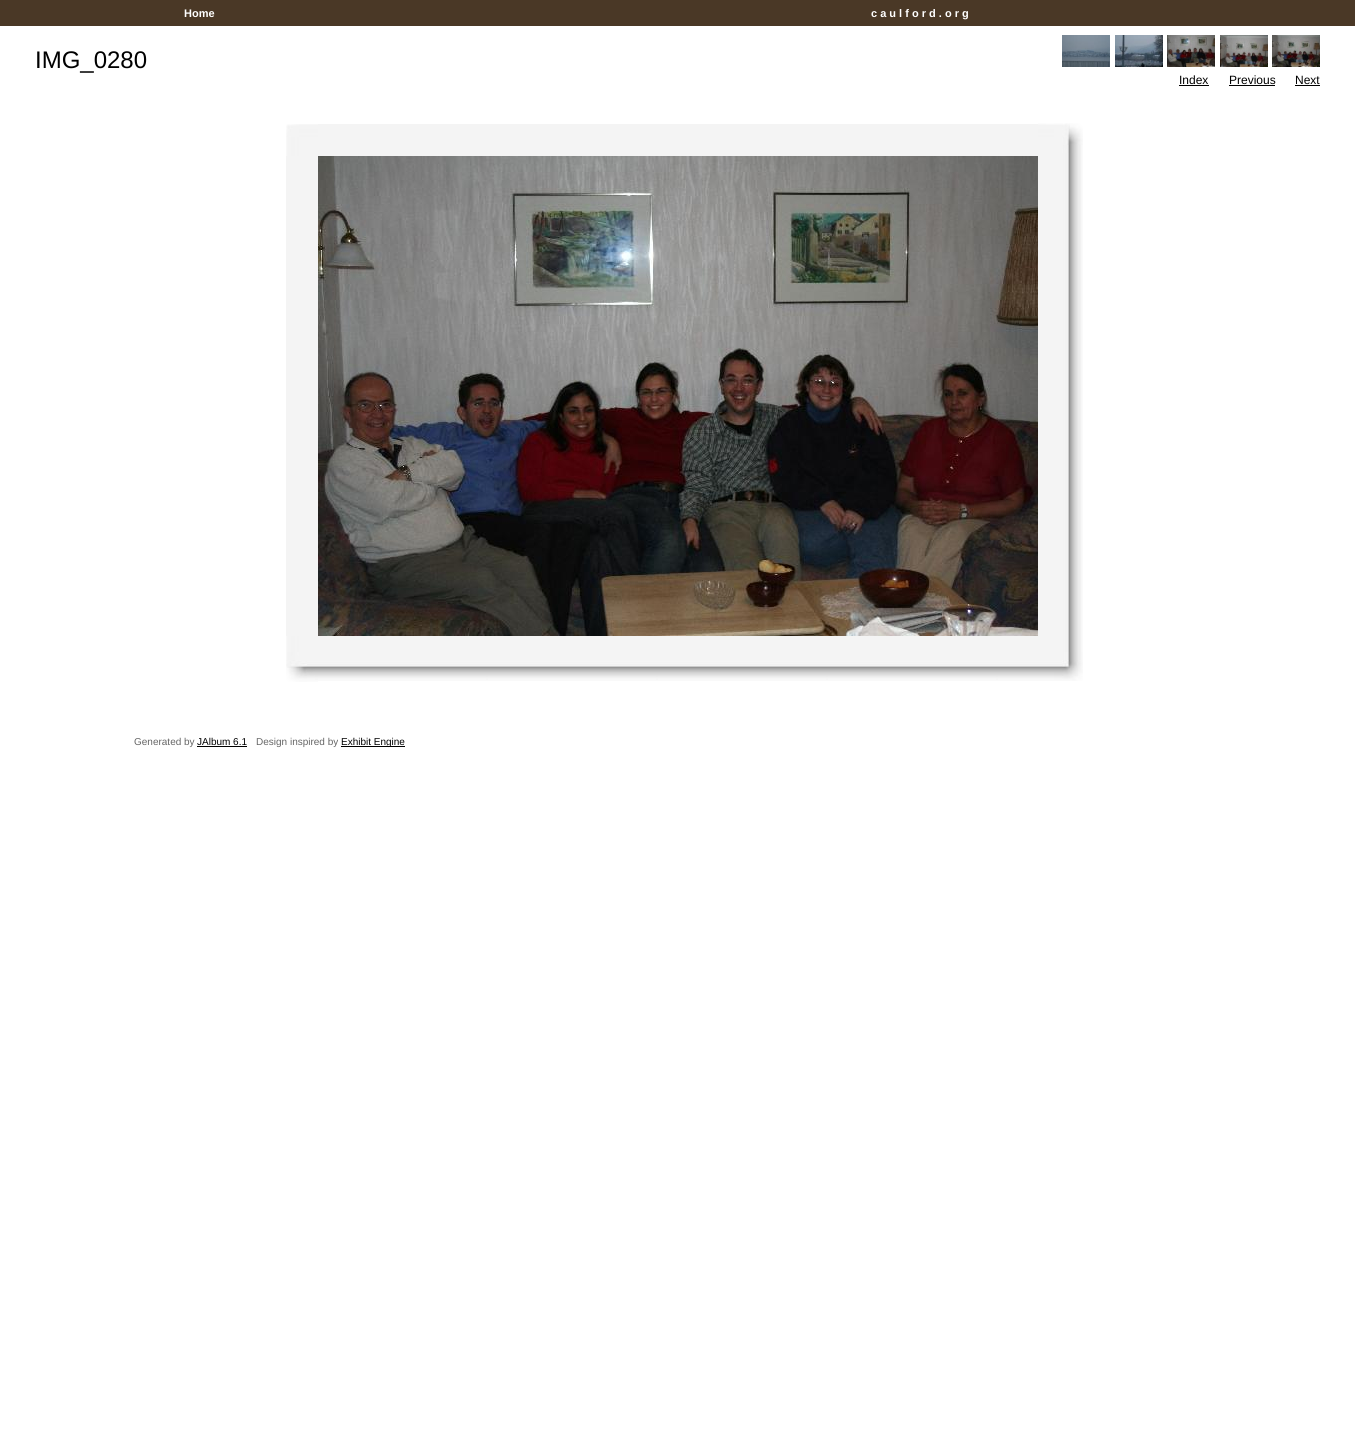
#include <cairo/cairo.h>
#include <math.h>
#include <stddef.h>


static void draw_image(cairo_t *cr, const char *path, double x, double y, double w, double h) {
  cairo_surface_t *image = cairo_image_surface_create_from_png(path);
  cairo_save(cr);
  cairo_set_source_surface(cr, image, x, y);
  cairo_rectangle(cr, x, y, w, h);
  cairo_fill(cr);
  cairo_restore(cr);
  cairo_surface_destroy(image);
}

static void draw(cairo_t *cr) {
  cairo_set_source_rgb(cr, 1, 1, 1);
  cairo_paint(cr);
  cairo_set_source_rgb(cr, 74 / 255.0, 56 / 255.0, 38 / 255.0);
  cairo_rectangle(cr, 0, 0, 1355, 26);
  cairo_fill(cr);
  draw_image(cr, "images/1.png", 1062, 35, 48, 32);
  draw_image(cr, "images/2.png", 1115, 35, 48, 32);
  draw_image(cr, "images/3.png", 1167, 35, 48, 32);
  draw_image(cr, "images/4.png", 1220, 35, 48, 32);
  draw_image(cr, "images/5.png", 1272, 35, 48, 32);
  cairo_set_source_rgb(cr, 0, 0, 0);
  cairo_rectangle(cr, 1179, 85, 30, 1);
  cairo_fill(cr);
  cairo_rectangle(cr, 1229, 85, 46, 1);
  cairo_fill(cr);
  cairo_rectangle(cr, 1295, 85, 25, 1);
  cairo_fill(cr);
  draw_image(cr, "images/6.png", 286, 124, 32, 32);
  cairo_set_source_rgb(cr, 244 / 255.0, 244 / 255.0, 244 / 255.0);
  cairo_rectangle(cr, 318, 124, 720, 32);
  cairo_fill(cr);
  draw_image(cr, "images/7.png", 1038, 123, 45, 33);
  cairo_rectangle(cr, 286, 156, 32, 480);
  cairo_fill(cr);
  draw_image(cr, "images/8.png", 318, 156, 720, 480);
  draw_image(cr, "images/9.png", 1038, 156, 45, 480);
  draw_image(cr, "images/10.png", 286, 636, 32, 46);
  draw_image(cr, "images/11.png", 318, 636, 720, 45);
  draw_image(cr, "images/12.png", 1038, 636, 45, 45);
  cairo_set_source_rgb(cr, 0, 0, 0);
  cairo_rectangle(cr, 197, 746, 50, 1);
  cairo_fill(cr);
  cairo_rectangle(cr, 341, 746, 64, 1);
  cairo_fill(cr);
  cairo_select_font_face(cr, "Liberation Sans", CAIRO_FONT_SLANT_NORMAL, CAIRO_FONT_WEIGHT_BOLD);
  cairo_set_font_size(cr, 11);
  cairo_set_source_rgb(cr, 1, 1, 1);
  cairo_move_to(cr, 184, 17);
  cairo_show_text(cr, "Home");
  cairo_move_to(cr, 871, 17);
  cairo_show_text(cr, "c a u l f o r d . o r g");
  cairo_select_font_face(cr, "Liberation Sans", CAIRO_FONT_SLANT_NORMAL, CAIRO_FONT_WEIGHT_NORMAL);
  cairo_set_font_size(cr, 24);
  cairo_set_source_rgb(cr, 0, 0, 0);
  cairo_move_to(cr, 35, 68);
  cairo_show_text(cr, "IMG_0280");
  cairo_set_font_size(cr, 12);
  cairo_move_to(cr, 1179, 84);
  cairo_show_text(cr, "Index");
  cairo_move_to(cr, 1229, 84);
  cairo_show_text(cr, "Previous");
  cairo_move_to(cr, 1295, 84);
  cairo_show_text(cr, "Next");
  cairo_set_font_size(cr, 10);
  cairo_set_source_rgb(cr, 102 / 255.0, 102 / 255.0, 102 / 255.0);
  cairo_move_to(cr, 134, 745);
  cairo_show_text(cr, "Generated by");
  cairo_set_source_rgb(cr, 0, 0, 0);
  cairo_move_to(cr, 197, 745);
  cairo_show_text(cr, "JAlbum 6.1");
  cairo_set_source_rgb(cr, 102 / 255.0, 102 / 255.0, 102 / 255.0);
  cairo_move_to(cr, 256, 745);
  cairo_show_text(cr, "Design inspired by");
  cairo_set_source_rgb(cr, 0, 0, 0);
  cairo_move_to(cr, 341, 745);
  cairo_show_text(cr, "Exhibit Engine");
}

int main(void) {
  cairo_surface_t *surface = cairo_image_surface_create(CAIRO_FORMAT_RGB24, 1355, 1454);
  cairo_t *cr = cairo_create(surface);
  cairo_font_options_t *options = cairo_font_options_create();
  cairo_font_options_set_hint_metrics(options, CAIRO_HINT_METRICS_OFF);
  cairo_font_options_set_hint_style(options, CAIRO_HINT_STYLE_NONE);
  cairo_set_font_options(cr, options);
  cairo_set_miter_limit(cr, 4);
  draw(cr);
  cairo_surface_write_to_png(surface, "out.png");
  cairo_font_options_destroy(options);
  cairo_destroy(cr);
  cairo_surface_destroy(surface);
  return 0;
}
